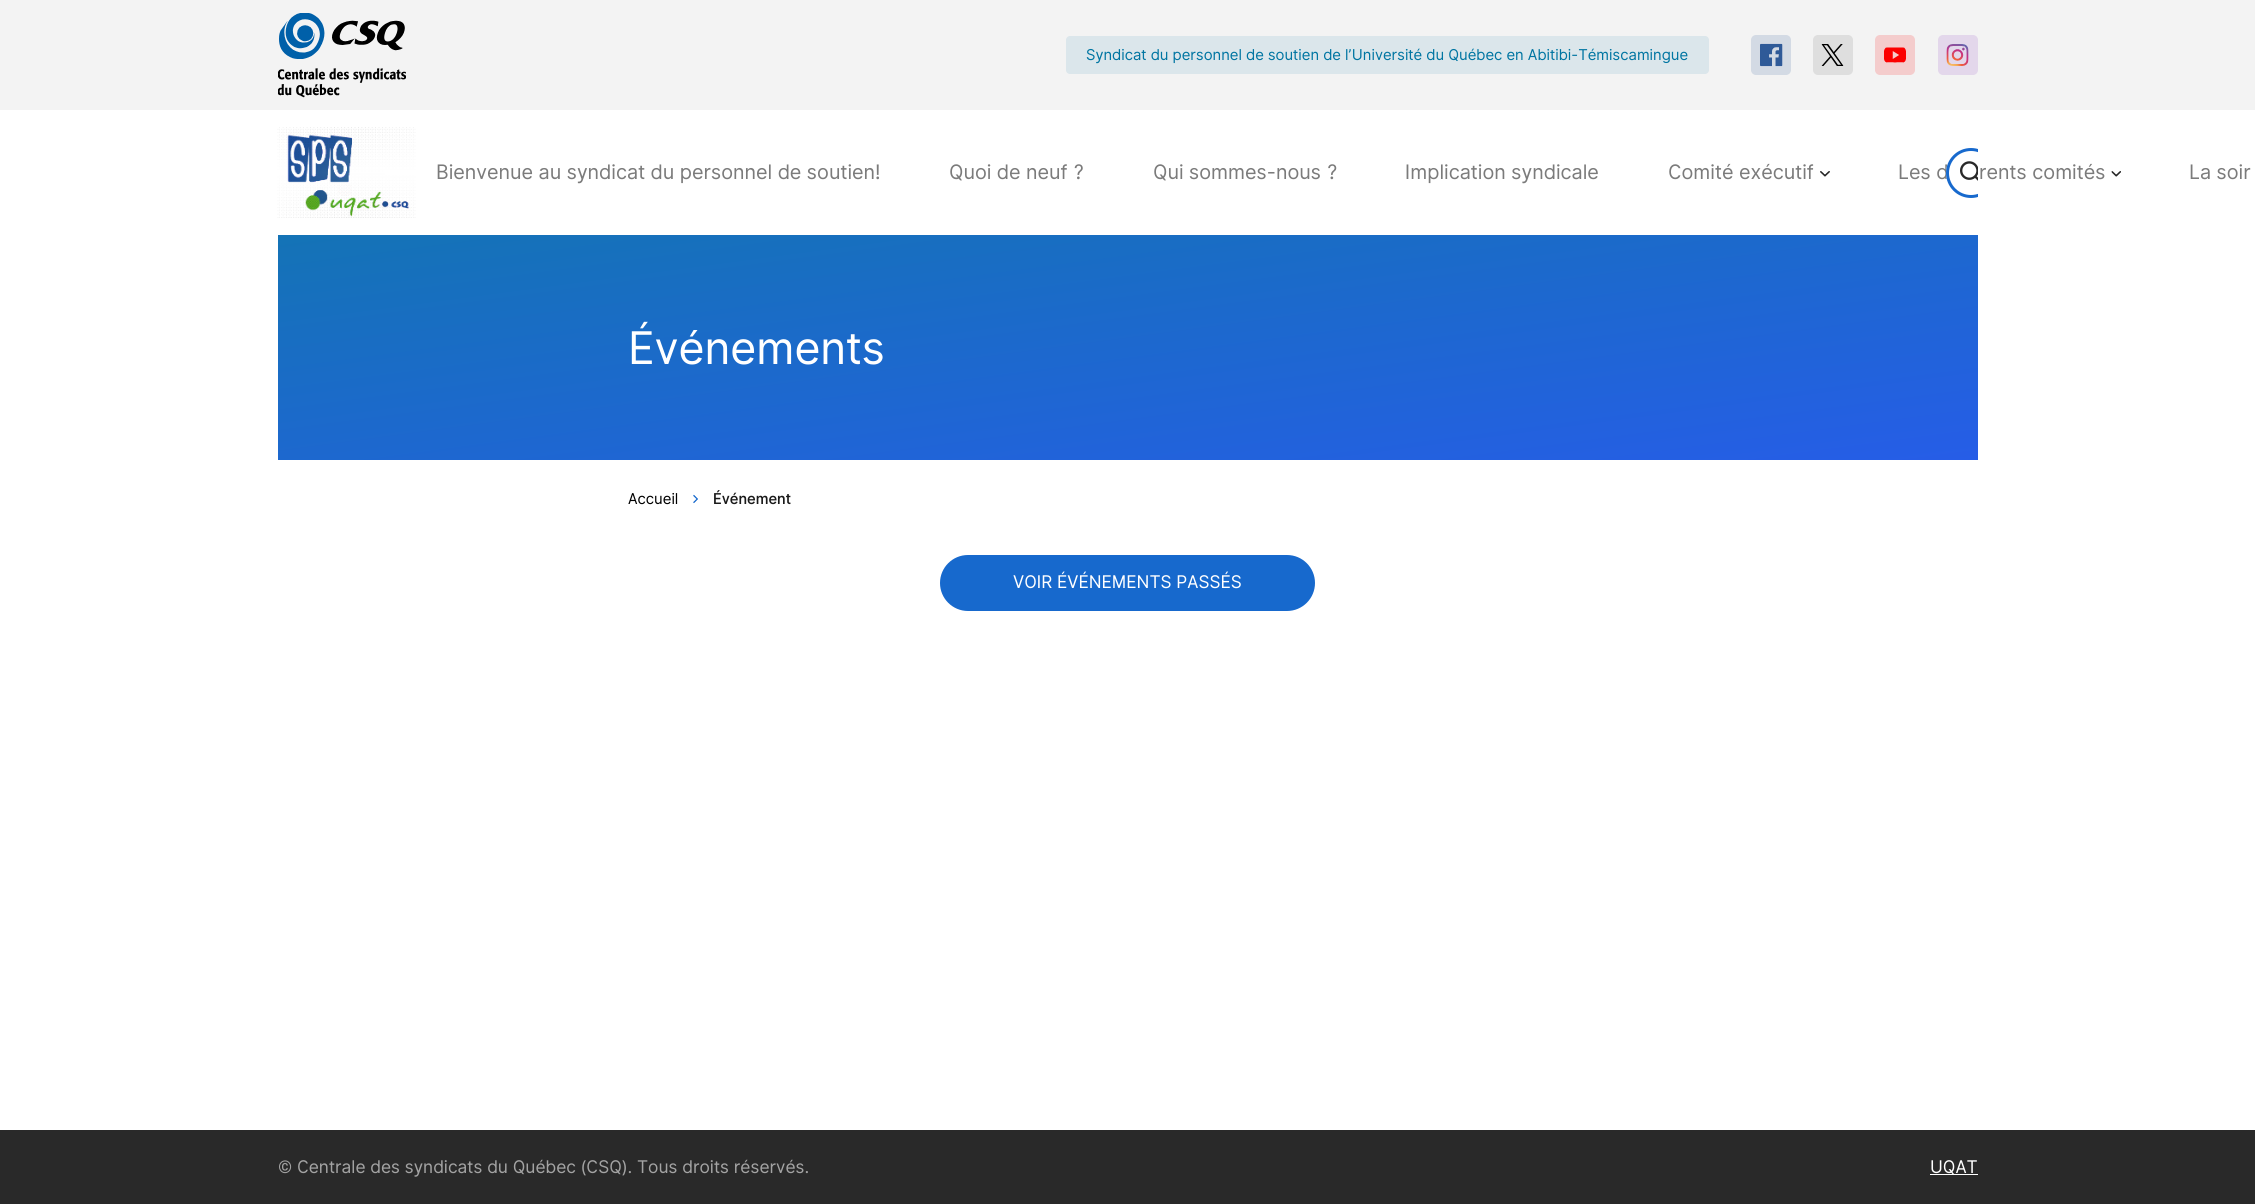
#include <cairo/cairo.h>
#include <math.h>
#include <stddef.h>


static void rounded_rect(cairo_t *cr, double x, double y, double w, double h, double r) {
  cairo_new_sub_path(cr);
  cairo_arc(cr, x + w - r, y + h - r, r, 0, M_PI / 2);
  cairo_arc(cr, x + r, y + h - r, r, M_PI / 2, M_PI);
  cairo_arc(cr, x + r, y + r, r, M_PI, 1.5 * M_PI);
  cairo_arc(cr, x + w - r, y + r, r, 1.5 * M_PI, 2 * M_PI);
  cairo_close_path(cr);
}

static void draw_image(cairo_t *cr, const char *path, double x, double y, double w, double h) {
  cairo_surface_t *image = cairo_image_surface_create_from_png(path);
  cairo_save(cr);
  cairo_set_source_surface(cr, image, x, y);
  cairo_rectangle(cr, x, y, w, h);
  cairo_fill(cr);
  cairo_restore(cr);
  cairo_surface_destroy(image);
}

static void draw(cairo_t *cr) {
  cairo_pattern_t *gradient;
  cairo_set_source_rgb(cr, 1, 1, 1);
  cairo_paint(cr);
  cairo_set_source_rgb(cr, 243 / 255.0, 243 / 255.0, 243 / 255.0);
  cairo_rectangle(cr, 0, 0, 2255, 110);
  cairo_fill(cr);
  draw_image(cr, "images/1.png", 278, 13, 128, 85);
  cairo_set_source_rgb(cr, 219 / 255.0, 230 / 255.0, 235 / 255.0);
  rounded_rect(cr, 1066, 36, 643, 38, 4);
  cairo_fill(cr);
  cairo_set_source_rgb(cr, 211 / 255.0, 218 / 255.0, 228 / 255.0);
  rounded_rect(cr, 1751, 35, 40, 40, 5);
  cairo_fill(cr);
  draw_image(cr, "images/2.png", 1760, 43, 23, 24);
  cairo_set_source_rgb(cr, 222 / 255.0, 222 / 255.0, 222 / 255.0);
  rounded_rect(cr, 1813, 35, 40, 40, 5);
  cairo_fill(cr);
  draw_image(cr, "images/3.png", 1821, 44, 23, 22);
  cairo_set_source_rgb(cr, 244 / 255.0, 204 / 255.0, 204 / 255.0);
  rounded_rect(cr, 1875, 35, 40, 40, 5);
  cairo_fill(cr);
  draw_image(cr, "images/4.png", 1884, 47, 22, 16);
  cairo_set_source_rgb(cr, 227 / 255.0, 215 / 255.0, 235 / 255.0);
  rounded_rect(cr, 1938, 35, 40, 40, 5);
  cairo_fill(cr);
  draw_image(cr, "images/5.png", 1946, 44, 23, 22);
  draw_image(cr, "images/6.png", 277, 127, 139, 91);
  draw_image(cr, "images/8.png", 1820, 171, 10, 6);
  draw_image(cr, "images/9.png", 2111, 171, 10, 6);
  gradient = cairo_pattern_create_linear(1098, 126, 1157, 569);
  cairo_pattern_add_color_stop_rgba(gradient, 0, 20 / 255.0, 115 / 255.0, 182 / 255.0, 1);
  cairo_pattern_add_color_stop_rgba(gradient, 1, 38 / 255.0, 93 / 255.0, 231 / 255.0, 1);
  cairo_set_source(cr, gradient);
  cairo_pattern_destroy(gradient);
  cairo_rectangle(cr, 278, 235, 1700, 225);
  cairo_fill(cr);
  draw_image(cr, "images/10.png", 693, 494, 5, 10);
  cairo_set_source_rgb(cr, 23 / 255.0, 105 / 255.0, 205 / 255.0);
  rounded_rect(cr, 940, 555, 375, 56, 28);
  cairo_fill(cr);
  cairo_set_source_rgb(cr, 41 / 255.0, 41 / 255.0, 41 / 255.0);
  cairo_rectangle(cr, 0, 1130, 2255, 74);
  cairo_fill(cr);
  cairo_set_source_rgb(cr, 1, 1, 1);
  cairo_rectangle(cr, 1930, 1174, 48, 1);
  cairo_fill(cr);
  cairo_select_font_face(cr, "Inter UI", CAIRO_FONT_SLANT_NORMAL, CAIRO_FONT_WEIGHT_NORMAL);
  cairo_set_font_size(cr, 15);
  cairo_set_source_rgb(cr, 0, 117 / 255.0, 162 / 255.0);
  cairo_move_to(cr, 1086, 60);
  cairo_show_text(cr, "Syndicat du personnel de soutien de l’Université du Québec en Abitibi-Témiscamingue");
  cairo_set_font_size(cr, 20);
  cairo_set_source_rgb(cr, 123 / 255.0, 123 / 255.0, 123 / 255.0);
  cairo_move_to(cr, 436, 179);
  cairo_show_text(cr, "Bienvenue au syndicat du personnel de soutien!");
  cairo_move_to(cr, 949, 179);
  cairo_show_text(cr, "Quoi de neuf ?");
  cairo_move_to(cr, 1153, 179);
  cairo_show_text(cr, "Qui sommes-nous ?");
  cairo_move_to(cr, 1405, 179);
  cairo_show_text(cr, "Implication syndicale");
  cairo_move_to(cr, 1668, 179);
  cairo_show_text(cr, "Comité exécutif");
  cairo_move_to(cr, 1898, 179);
  cairo_show_text(cr, "Les d");
  cairo_move_to(cr, 1979, 179);
  cairo_show_text(cr, "rents comités");
  cairo_save(cr);
  cairo_rectangle(cr, 1946, 148, 32, 50);
  cairo_clip(cr);
  cairo_set_source_rgb(cr, 1, 1, 1);
  cairo_arc(cr, 1971, 173, 25, 0, 2 * M_PI);
  cairo_fill(cr);
  cairo_restore(cr);
  draw_image(cr, "images/7.png", 1960, 161, 18, 20);
  cairo_save(cr);
  cairo_rectangle(cr, 1946, 148, 32, 50);
  cairo_clip(cr);
  cairo_arc(cr, 1971, 173, 23.5, 0, 2 * M_PI);
  cairo_set_source_rgb(cr, 23 / 255.0, 105 / 255.0, 205 / 255.0);
  cairo_set_line_width(cr, 3);
  cairo_stroke(cr);
  cairo_restore(cr);
  cairo_move_to(cr, 2189, 179);
  cairo_show_text(cr, "La soir");
  cairo_set_font_size(cr, 45);
  cairo_set_source_rgb(cr, 1, 1, 1);
  cairo_move_to(cr, 628, 364);
  cairo_show_text(cr, "Événements");
  cairo_set_font_size(cr, 15);
  cairo_set_source_rgb(cr, 0, 0, 0);
  cairo_move_to(cr, 628, 504);
  cairo_show_text(cr, "Accueil");
  cairo_select_font_face(cr, "Inter UI Medium", CAIRO_FONT_SLANT_NORMAL, CAIRO_FONT_WEIGHT_NORMAL);
  cairo_set_source_rgb(cr, 26 / 255.0, 26 / 255.0, 26 / 255.0);
  cairo_move_to(cr, 713, 504);
  cairo_show_text(cr, "Événement");
  cairo_select_font_face(cr, "Inter UI", CAIRO_FONT_SLANT_NORMAL, CAIRO_FONT_WEIGHT_NORMAL);
  cairo_set_font_size(cr, 17.5);
  cairo_set_source_rgb(cr, 1, 1, 1);
  cairo_move_to(cr, 1013, 588);
  cairo_show_text(cr, "VOIR ÉVÉNEMENTS PASSÉS");
  cairo_set_source_rgb(cr, 163 / 255.0, 163 / 255.0, 163 / 255.0);
  cairo_move_to(cr, 278, 1173);
  cairo_show_text(cr, "© Centrale des syndicats du Québec (CSQ). Tous droits réservés.");
  cairo_set_source_rgb(cr, 1, 1, 1);
  cairo_move_to(cr, 1930, 1173);
  cairo_show_text(cr, "UQAT");
}

int main(void) {
  cairo_surface_t *surface = cairo_image_surface_create(CAIRO_FORMAT_RGB24, 2255, 1204);
  cairo_t *cr = cairo_create(surface);
  cairo_font_options_t *options = cairo_font_options_create();
  cairo_font_options_set_hint_metrics(options, CAIRO_HINT_METRICS_OFF);
  cairo_font_options_set_hint_style(options, CAIRO_HINT_STYLE_NONE);
  cairo_set_font_options(cr, options);
  cairo_set_miter_limit(cr, 4);
  draw(cr);
  cairo_surface_write_to_png(surface, "out.png");
  cairo_font_options_destroy(options);
  cairo_destroy(cr);
  cairo_surface_destroy(surface);
  return 0;
}
